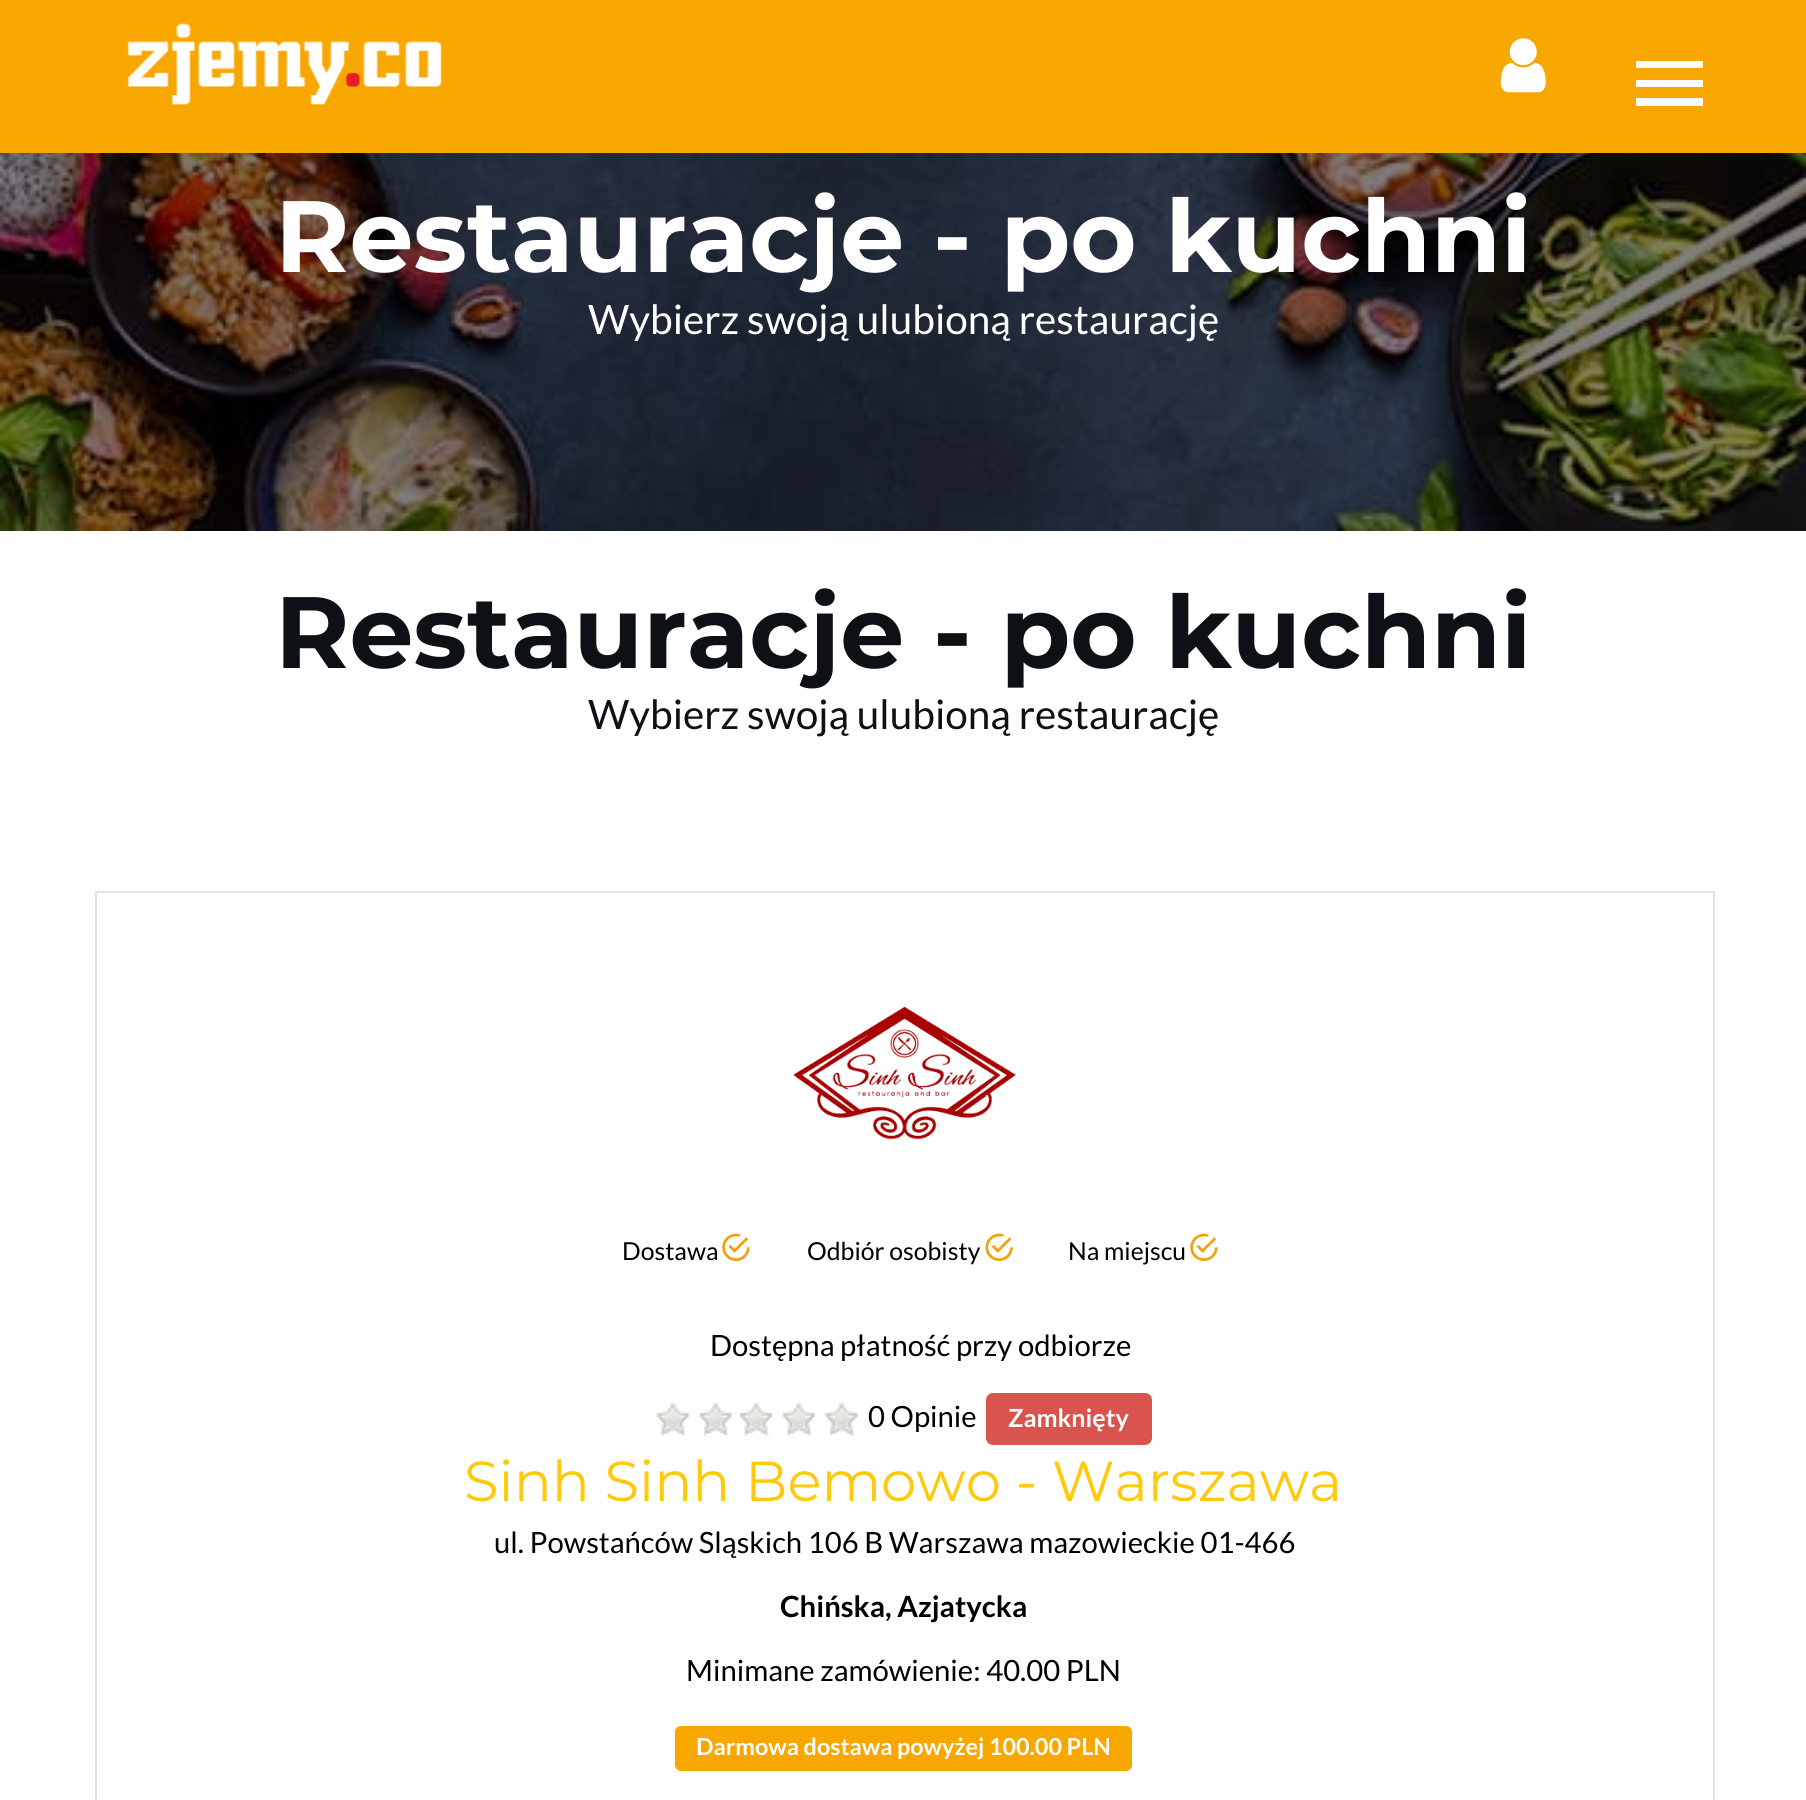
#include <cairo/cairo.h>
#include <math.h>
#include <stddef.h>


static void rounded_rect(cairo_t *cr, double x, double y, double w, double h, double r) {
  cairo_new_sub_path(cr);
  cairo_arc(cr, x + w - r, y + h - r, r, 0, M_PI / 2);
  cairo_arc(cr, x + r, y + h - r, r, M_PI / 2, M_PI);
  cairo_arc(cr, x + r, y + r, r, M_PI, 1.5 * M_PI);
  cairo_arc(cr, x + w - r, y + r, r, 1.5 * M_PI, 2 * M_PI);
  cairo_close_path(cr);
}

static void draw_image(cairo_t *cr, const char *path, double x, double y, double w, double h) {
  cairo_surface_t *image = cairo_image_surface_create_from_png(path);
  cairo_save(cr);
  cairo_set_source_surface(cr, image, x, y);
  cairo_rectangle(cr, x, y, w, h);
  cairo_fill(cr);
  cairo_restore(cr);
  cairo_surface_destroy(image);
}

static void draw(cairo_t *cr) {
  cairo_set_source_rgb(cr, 1, 1, 1);
  cairo_paint(cr);
  cairo_set_source_rgb(cr, 248 / 255.0, 167 / 255.0, 0);
  cairo_rectangle(cr, 0, 0, 1806, 153);
  cairo_fill(cr);
  draw_image(cr, "images/1.png", 127, 23, 315, 82);
  draw_image(cr, "images/2.png", 1500, 38, 46, 55);
  cairo_set_source_rgb(cr, 1, 1, 1);
  cairo_new_path(cr);
  cairo_move_to(cr, 1636, 106);
  cairo_line_to(cr, 1636, 98);
  cairo_line_to(cr, 1703, 98);
  cairo_line_to(cr, 1703, 106);
  cairo_close_path(cr);
  cairo_move_to(cr, 1636, 87);
  cairo_line_to(cr, 1636, 80);
  cairo_line_to(cr, 1703, 80);
  cairo_line_to(cr, 1703, 87);
  cairo_close_path(cr);
  cairo_move_to(cr, 1636, 61);
  cairo_line_to(cr, 1703, 61);
  cairo_line_to(cr, 1703, 68);
  cairo_line_to(cr, 1636, 68);
  cairo_close_path(cr);
  cairo_fill(cr);
  draw_image(cr, "images/3.png", 0, 153, 1806, 378);
  cairo_rectangle(cr, 96, 892, 1618, 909);
  cairo_set_source_rgb(cr, 228 / 255.0, 228 / 255.0, 228 / 255.0);
  cairo_stroke(cr);
  draw_image(cr, "images/4.png", 793, 1006, 223, 134);
  draw_image(cr, "images/5.png", 722, 1233, 28, 28);
  draw_image(cr, "images/6.png", 985, 1233, 28, 29);
  draw_image(cr, "images/5.png", 1190, 1233, 28, 28);
  draw_image(cr, "images/7.png", 655, 1402, 36, 34);
  draw_image(cr, "images/8.png", 698, 1402, 36, 34);
  draw_image(cr, "images/9.png", 738, 1402, 36, 34);
  draw_image(cr, "images/7.png", 781, 1402, 36, 34);
  draw_image(cr, "images/10.png", 824, 1402, 36, 34);
  cairo_set_source_rgb(cr, 217 / 255.0, 83 / 255.0, 79 / 255.0);
  rounded_rect(cr, 986, 1393, 166, 52, 7);
  cairo_fill(cr);
  cairo_set_source_rgb(cr, 248 / 255.0, 167 / 255.0, 0);
  rounded_rect(cr, 675, 1726, 457, 45, 6);
  cairo_fill(cr);
  cairo_select_font_face(cr, "Montserrat", CAIRO_FONT_SLANT_NORMAL, CAIRO_FONT_WEIGHT_BOLD);
  cairo_set_font_size(cr, 101.25);
  cairo_set_source_rgb(cr, 1, 1, 1);
  cairo_move_to(cr, 275, 272);
  cairo_show_text(cr, "Restauracje - po kuchni");
  cairo_select_font_face(cr, "Lato", CAIRO_FONT_SLANT_NORMAL, CAIRO_FONT_WEIGHT_NORMAL);
  cairo_set_font_size(cr, 40.5);
  cairo_move_to(cr, 588, 334);
  cairo_show_text(cr, "Wybierz swoją ulubioną restaurację");
  cairo_select_font_face(cr, "Montserrat", CAIRO_FONT_SLANT_NORMAL, CAIRO_FONT_WEIGHT_BOLD);
  cairo_set_font_size(cr, 101.25);
  cairo_set_source_rgb(cr, 13 / 255.0, 17 / 255.0, 21 / 255.0);
  cairo_move_to(cr, 275, 668);
  cairo_show_text(cr, "Restauracje - po kuchni");
  cairo_select_font_face(cr, "Lato", CAIRO_FONT_SLANT_NORMAL, CAIRO_FONT_WEIGHT_NORMAL);
  cairo_set_font_size(cr, 40.5);
  cairo_move_to(cr, 588, 729);
  cairo_show_text(cr, "Wybierz swoją ulubioną restaurację");
  cairo_set_font_size(cr, 24.75);
  cairo_set_source_rgb(cr, 0, 0, 0);
  cairo_move_to(cr, 622, 1260);
  cairo_show_text(cr, "Dostawa");
  cairo_move_to(cr, 807, 1260);
  cairo_show_text(cr, "Odbiór osobisty");
  cairo_move_to(cr, 1068, 1260);
  cairo_show_text(cr, "Na miejscu");
  cairo_set_font_size(cr, 29.25);
  cairo_move_to(cr, 710, 1356);
  cairo_show_text(cr, "Dostępna płatność przy odbiorze");
  cairo_move_to(cr, 868, 1427);
  cairo_show_text(cr, "0 Opinie");
  cairo_select_font_face(cr, "Lato", CAIRO_FONT_SLANT_NORMAL, CAIRO_FONT_WEIGHT_BOLD);
  cairo_set_font_size(cr, 25);
  cairo_set_source_rgb(cr, 1, 1, 1);
  cairo_move_to(cr, 1008, 1427);
  cairo_show_text(cr, "Zamknięty");
  cairo_select_font_face(cr, "Montserrat", CAIRO_FONT_SLANT_NORMAL, CAIRO_FONT_WEIGHT_NORMAL);
  cairo_set_font_size(cr, 56.25);
  cairo_set_source_rgb(cr, 1, 201 / 255.0, 12 / 255.0);
  cairo_move_to(cr, 464, 1501);
  cairo_show_text(cr, "Sinh Sinh Bemowo - Warszawa");
  cairo_select_font_face(cr, "Lato", CAIRO_FONT_SLANT_NORMAL, CAIRO_FONT_WEIGHT_NORMAL);
  cairo_set_font_size(cr, 29.25);
  cairo_set_source_rgb(cr, 0, 0, 0);
  cairo_move_to(cr, 494, 1553);
  cairo_show_text(cr, "ul. Powstańców Sląskich 106 B Warszawa mazowieckie 01-466");
  cairo_select_font_face(cr, "Lato", CAIRO_FONT_SLANT_NORMAL, CAIRO_FONT_WEIGHT_BOLD);
  cairo_move_to(cr, 780, 1617);
  cairo_show_text(cr, "Chińska, Azjatycka");
  cairo_select_font_face(cr, "Lato", CAIRO_FONT_SLANT_NORMAL, CAIRO_FONT_WEIGHT_NORMAL);
  cairo_move_to(cr, 686, 1681);
  cairo_show_text(cr, "Minimane zamówienie: 40.00 PLN");
  cairo_select_font_face(cr, "Lato", CAIRO_FONT_SLANT_NORMAL, CAIRO_FONT_WEIGHT_BOLD);
  cairo_set_font_size(cr, 23.4);
  cairo_set_source_rgb(cr, 1, 1, 1);
  cairo_move_to(cr, 696, 1755);
  cairo_show_text(cr, "Darmowa dostawa powyżej 100.00 PLN");
}

int main(void) {
  cairo_surface_t *surface = cairo_image_surface_create(CAIRO_FORMAT_RGB24, 1806, 1800);
  cairo_t *cr = cairo_create(surface);
  cairo_font_options_t *options = cairo_font_options_create();
  cairo_font_options_set_hint_metrics(options, CAIRO_HINT_METRICS_OFF);
  cairo_font_options_set_hint_style(options, CAIRO_HINT_STYLE_NONE);
  cairo_set_font_options(cr, options);
  cairo_set_miter_limit(cr, 4);
  draw(cr);
  cairo_surface_write_to_png(surface, "out.png");
  cairo_font_options_destroy(options);
  cairo_destroy(cr);
  cairo_surface_destroy(surface);
  return 0;
}
